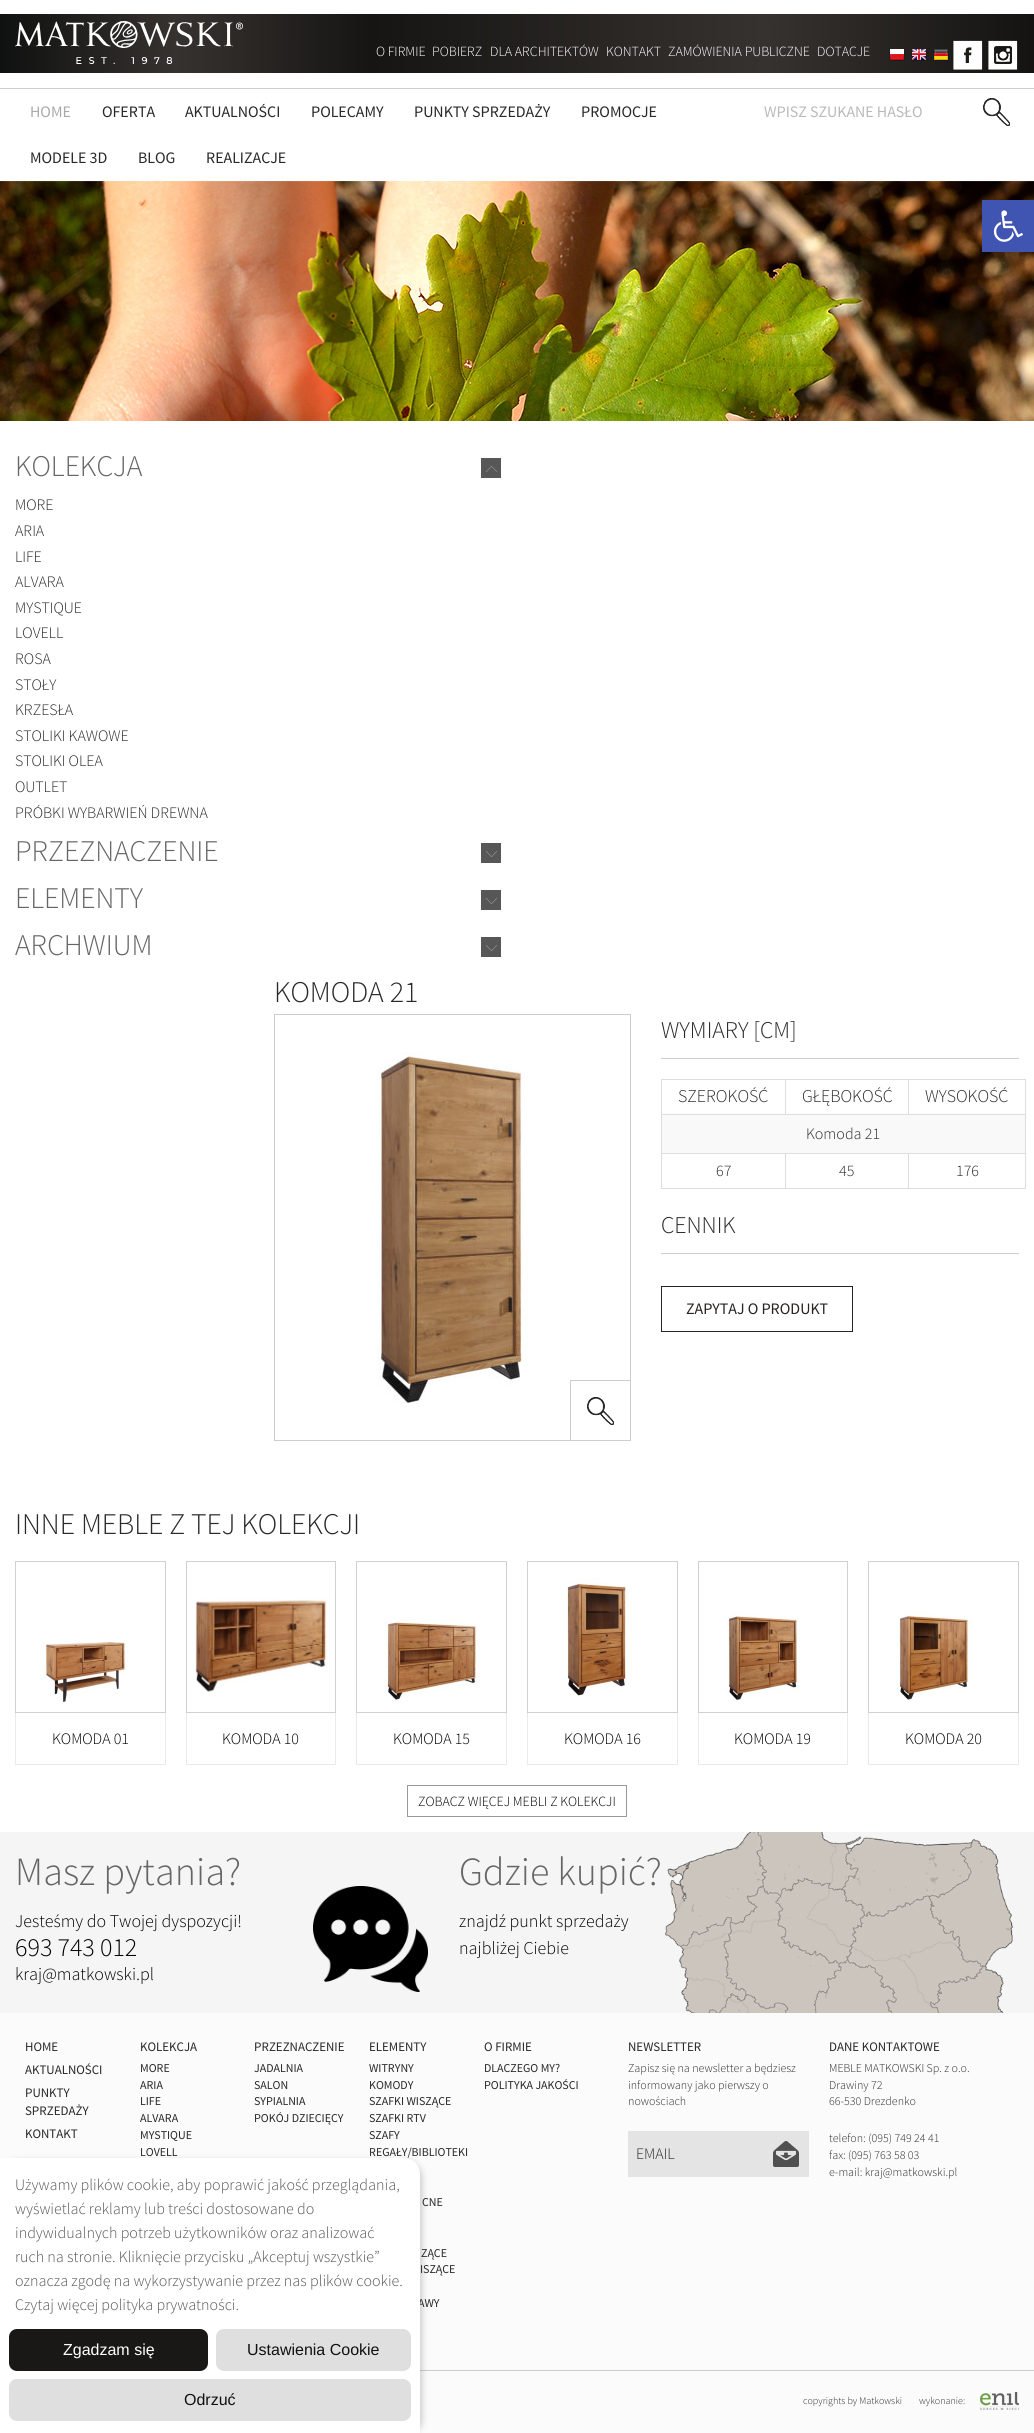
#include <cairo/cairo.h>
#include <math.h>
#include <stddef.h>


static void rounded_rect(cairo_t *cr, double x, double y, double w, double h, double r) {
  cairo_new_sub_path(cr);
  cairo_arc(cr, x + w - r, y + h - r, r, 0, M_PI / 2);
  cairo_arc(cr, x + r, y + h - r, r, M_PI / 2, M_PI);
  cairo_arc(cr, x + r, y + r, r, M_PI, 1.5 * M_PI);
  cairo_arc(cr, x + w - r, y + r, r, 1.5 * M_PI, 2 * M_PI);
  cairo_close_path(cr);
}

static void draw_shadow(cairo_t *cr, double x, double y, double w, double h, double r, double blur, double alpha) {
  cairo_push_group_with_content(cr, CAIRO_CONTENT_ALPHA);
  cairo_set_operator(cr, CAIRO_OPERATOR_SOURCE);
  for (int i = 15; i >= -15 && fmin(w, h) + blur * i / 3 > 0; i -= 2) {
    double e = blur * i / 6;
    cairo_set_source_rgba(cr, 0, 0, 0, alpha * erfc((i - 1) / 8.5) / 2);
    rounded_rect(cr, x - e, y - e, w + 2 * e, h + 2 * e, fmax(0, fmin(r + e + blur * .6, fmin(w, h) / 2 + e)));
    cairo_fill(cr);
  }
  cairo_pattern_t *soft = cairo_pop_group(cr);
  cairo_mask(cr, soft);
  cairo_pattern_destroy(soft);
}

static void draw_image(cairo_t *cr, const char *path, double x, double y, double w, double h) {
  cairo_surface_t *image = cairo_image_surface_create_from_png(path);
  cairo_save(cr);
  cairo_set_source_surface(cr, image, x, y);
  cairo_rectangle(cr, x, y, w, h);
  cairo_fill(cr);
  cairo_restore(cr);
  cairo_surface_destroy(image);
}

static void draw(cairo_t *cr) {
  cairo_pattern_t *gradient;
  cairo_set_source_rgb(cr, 1, 1, 1);
  cairo_paint(cr);
  gradient = cairo_pattern_create_linear(0, 44, 1034, 43);
  cairo_pattern_add_color_stop_rgba(gradient, 0, 15 / 255.0, 17 / 255.0, 16 / 255.0, 1);
  cairo_pattern_add_color_stop_rgba(gradient, 0.17, 54 / 255.0, 50 / 255.0, 47 / 255.0, 1);
  cairo_pattern_add_color_stop_rgba(gradient, 0.36, 22 / 255.0, 21 / 255.0, 19 / 255.0, 1);
  cairo_pattern_add_color_stop_rgba(gradient, 0.74, 54 / 255.0, 50 / 255.0, 47 / 255.0, 1);
  cairo_pattern_add_color_stop_rgba(gradient, 1, 20 / 255.0, 19 / 255.0, 17 / 255.0, 1);
  cairo_set_source(cr, gradient);
  cairo_pattern_destroy(gradient);
  cairo_rectangle(cr, 0, 14, 1034, 59);
  cairo_fill(cr);
  draw_image(cr, "images/1.png", 15, 21, 228, 43);
  draw_image(cr, "images/2.png", 889, 49, 16, 12);
  draw_image(cr, "images/3.png", 911, 49, 16, 12);
  draw_image(cr, "images/4.png", 933, 49, 16, 12);
  draw_image(cr, "images/5.png", 953, 40, 30, 30);
  draw_image(cr, "images/6.png", 988, 40, 30, 30);
  cairo_set_source_rgb(cr, 205 / 255.0, 205 / 255.0, 205 / 255.0);
  cairo_rectangle(cr, 0, 88, 1034, 1);
  cairo_fill(cr);
  draw_image(cr, "images/7.png", 983, 98, 27, 28);
  draw_image(cr, "images/8.png", 0, 181, 1034, 240);
  cairo_set_source_rgb(cr, 0, 0, 0);
  draw_shadow(cr, 982, 200, 52, 52, 0, 5, 0.1);
  cairo_set_source_rgb(cr, 64 / 255.0, 84 / 255.0, 178 / 255.0);
  cairo_rectangle(cr, 982, 200, 52, 52);
  cairo_fill(cr);
  draw_image(cr, "images/9.png", 993, 210, 30, 32);
  draw_image(cr, "images/10.png", 481, 458, 20, 20);
  draw_image(cr, "images/11.png", 481, 843, 20, 20);
  draw_image(cr, "images/11.png", 481, 890, 20, 20);
  draw_image(cr, "images/11.png", 481, 937, 20, 20);
  cairo_rectangle(cr, 274.5, 1014.5, 356, 426);
  cairo_set_source_rgb(cr, 205 / 255.0, 205 / 255.0, 205 / 255.0);
  cairo_set_line_width(cr, 1);
  cairo_stroke(cr);
  draw_image(cr, "images/12.png", 377, 1051, 146, 352);
  draw_image(cr, "images/7.png", 587, 1397, 27, 28);
  cairo_rectangle(cr, 570, 1380, 60, 1);
  cairo_fill(cr);
  cairo_rectangle(cr, 570, 1380, 1, 60);
  cairo_fill(cr);
  cairo_rectangle(cr, 661, 1058, 358, 1);
  cairo_fill(cr);
  cairo_set_source_rgb(cr, 221 / 255.0, 221 / 255.0, 221 / 255.0);
  cairo_rectangle(cr, 661, 1079, 365, 1);
  cairo_fill(cr);
  cairo_rectangle(cr, 1025, 1079, 1, 110);
  cairo_fill(cr);
  cairo_rectangle(cr, 661, 1188, 365, 1);
  cairo_fill(cr);
  cairo_rectangle(cr, 661, 1079, 1, 110);
  cairo_fill(cr);
  cairo_rectangle(cr, 661, 1114, 365, 1);
  cairo_fill(cr);
  cairo_rectangle(cr, 785, 1079, 1, 36);
  cairo_fill(cr);
  cairo_rectangle(cr, 908, 1079, 1, 36);
  cairo_fill(cr);
  cairo_set_source_rgb(cr, 249 / 255.0, 249 / 255.0, 249 / 255.0);
  cairo_rectangle(cr, 662, 1115, 363, 38);
  cairo_fill(cr);
  cairo_set_source_rgb(cr, 221 / 255.0, 221 / 255.0, 221 / 255.0);
  cairo_rectangle(cr, 908, 1153, 118, 1);
  cairo_fill(cr);
  cairo_rectangle(cr, 908, 1153, 1, 36);
  cairo_fill(cr);
  cairo_rectangle(cr, 785, 1153, 124, 1);
  cairo_fill(cr);
  cairo_rectangle(cr, 785, 1153, 1, 36);
  cairo_fill(cr);
  cairo_rectangle(cr, 661, 1153, 125, 1);
  cairo_fill(cr);
  cairo_set_source_rgb(cr, 205 / 255.0, 205 / 255.0, 205 / 255.0);
  cairo_rectangle(cr, 661, 1253, 358, 1);
  cairo_fill(cr);
  cairo_rectangle(cr, 661.5, 1286.5, 191, 45);
  cairo_set_source_rgb(cr, 39 / 255.0, 36 / 255.0, 34 / 255.0);
  cairo_stroke(cr);
  cairo_rectangle(cr, 15.5, 1561.5, 150, 151);
  cairo_set_source_rgb(cr, 208 / 255.0, 208 / 255.0, 208 / 255.0);
  cairo_stroke(cr);
  draw_image(cr, "images/13.png", 42, 1642, 86, 60);
  cairo_set_source_rgb(cr, 234 / 255.0, 234 / 255.0, 234 / 255.0);
  cairo_rectangle(cr, 165, 1713, 1, 52);
  cairo_fill(cr);
  cairo_rectangle(cr, 15, 1764, 151, 1);
  cairo_fill(cr);
  cairo_rectangle(cr, 15, 1713, 1, 52);
  cairo_fill(cr);
  cairo_rectangle(cr, 186.5, 1561.5, 149, 151);
  cairo_set_source_rgb(cr, 208 / 255.0, 208 / 255.0, 208 / 255.0);
  cairo_stroke(cr);
  draw_image(cr, "images/14.png", 195, 1597, 134, 95);
  cairo_set_source_rgb(cr, 234 / 255.0, 234 / 255.0, 234 / 255.0);
  cairo_rectangle(cr, 335, 1713, 1, 52);
  cairo_fill(cr);
  cairo_rectangle(cr, 186, 1764, 150, 1);
  cairo_fill(cr);
  cairo_rectangle(cr, 186, 1713, 1, 52);
  cairo_fill(cr);
  cairo_rectangle(cr, 356.5, 1561.5, 150, 151);
  cairo_set_source_rgb(cr, 208 / 255.0, 208 / 255.0, 208 / 255.0);
  cairo_stroke(cr);
  draw_image(cr, "images/15.png", 384, 1619, 94, 83);
  cairo_set_source_rgb(cr, 234 / 255.0, 234 / 255.0, 234 / 255.0);
  cairo_rectangle(cr, 506, 1713, 1, 52);
  cairo_fill(cr);
  cairo_rectangle(cr, 356, 1764, 151, 1);
  cairo_fill(cr);
  cairo_rectangle(cr, 356, 1713, 1, 52);
  cairo_fill(cr);
  cairo_rectangle(cr, 527.5, 1561.5, 150, 151);
  cairo_set_source_rgb(cr, 208 / 255.0, 208 / 255.0, 208 / 255.0);
  cairo_stroke(cr);
  draw_image(cr, "images/16.png", 567, 1578, 62, 118);
  cairo_set_source_rgb(cr, 234 / 255.0, 234 / 255.0, 234 / 255.0);
  cairo_rectangle(cr, 677, 1713, 1, 52);
  cairo_fill(cr);
  cairo_rectangle(cr, 527, 1764, 151, 1);
  cairo_fill(cr);
  cairo_rectangle(cr, 527, 1713, 1, 52);
  cairo_fill(cr);
  cairo_rectangle(cr, 698.5, 1561.5, 149, 151);
  cairo_set_source_rgb(cr, 208 / 255.0, 208 / 255.0, 208 / 255.0);
  cairo_stroke(cr);
  draw_image(cr, "images/17.png", 723, 1610, 78, 91);
  cairo_set_source_rgb(cr, 234 / 255.0, 234 / 255.0, 234 / 255.0);
  cairo_rectangle(cr, 847, 1713, 1, 52);
  cairo_fill(cr);
  cairo_rectangle(cr, 698, 1764, 150, 1);
  cairo_fill(cr);
  cairo_rectangle(cr, 698, 1713, 1, 52);
  cairo_fill(cr);
  cairo_rectangle(cr, 868.5, 1561.5, 150, 151);
  cairo_set_source_rgb(cr, 208 / 255.0, 208 / 255.0, 208 / 255.0);
  cairo_stroke(cr);
  draw_image(cr, "images/18.png", 896, 1610, 78, 90);
  cairo_set_source_rgb(cr, 234 / 255.0, 234 / 255.0, 234 / 255.0);
  cairo_rectangle(cr, 1018, 1713, 1, 52);
  cairo_fill(cr);
  cairo_rectangle(cr, 868, 1764, 151, 1);
  cairo_fill(cr);
  cairo_rectangle(cr, 868, 1713, 1, 52);
  cairo_fill(cr);
  cairo_rectangle(cr, 407.5, 1785.5, 219, 31);
  cairo_set_source_rgb(cr, 153 / 255.0, 153 / 255.0, 153 / 255.0);
  cairo_stroke(cr);
  cairo_set_source_rgb(cr, 245 / 255.0, 245 / 255.0, 245 / 255.0);
  cairo_rectangle(cr, 0, 1832, 1034, 181);
  cairo_fill(cr);
  draw_image(cr, "images/19.png", 313, 1886, 115, 106);
  draw_image(cr, "images/20.png", 665, 1832, 349, 181);
  cairo_set_source_rgb(cr, 251 / 255.0, 251 / 255.0, 251 / 255.0);
  cairo_rectangle(cr, 0, 2013, 1034, 357);
  cairo_fill(cr);
  cairo_set_source_rgb(cr, 228 / 255.0, 228 / 255.0, 228 / 255.0);
  cairo_rectangle(cr, 628, 2131, 181, 46);
  cairo_fill(cr);
  draw_image(cr, "images/21.png", 773, 2141, 26, 26);
  cairo_set_source_rgb(cr, 251 / 255.0, 251 / 255.0, 251 / 255.0);
  cairo_rectangle(cr, 420, 2371, 614, 62);
  cairo_fill(cr);
  cairo_set_source_rgb(cr, 205 / 255.0, 205 / 255.0, 205 / 255.0);
  cairo_rectangle(cr, 420, 2370, 614, 1);
  cairo_fill(cr);
  draw_image(cr, "images/22.png", 980, 2392, 39, 18);
  cairo_set_source_rgb(cr, 0, 0, 0);
  draw_shadow(cr, 2, 2161, 420, 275, 16, 3.5, 0.2);
  cairo_select_font_face(cr, "Source Sans Pro Light", CAIRO_FONT_SLANT_NORMAL, CAIRO_FONT_WEIGHT_NORMAL);
  cairo_set_font_size(cr, 14);
  cairo_set_source_rgb(cr, 1, 1, 1);
  cairo_move_to(cr, 376, 56);
  cairo_show_text(cr, "O FIRMIE");
  cairo_move_to(cr, 432, 56);
  cairo_show_text(cr, "POBIERZ");
  cairo_move_to(cr, 490, 56);
  cairo_show_text(cr, "DLA ARCHITEKTÓW");
  cairo_move_to(cr, 606, 56);
  cairo_show_text(cr, "KONTAKT");
  cairo_move_to(cr, 668, 56);
  cairo_show_text(cr, "ZAMÓWIENIA PUBLICZNE");
  cairo_move_to(cr, 817, 56);
  cairo_show_text(cr, "DOTACJE");
  cairo_select_font_face(cr, "Source Sans Pro", CAIRO_FONT_SLANT_NORMAL, CAIRO_FONT_WEIGHT_NORMAL);
  cairo_set_font_size(cr, 16);
  cairo_set_source_rgb(cr, 169 / 255.0, 169 / 255.0, 169 / 255.0);
  cairo_move_to(cr, 30, 117);
  cairo_show_text(cr, "HOME");
  cairo_set_source_rgb(cr, 41 / 255.0, 41 / 255.0, 41 / 255.0);
  cairo_move_to(cr, 102, 117);
  cairo_show_text(cr, "OFERTA");
  cairo_move_to(cr, 185, 117);
  cairo_show_text(cr, "AKTUALNOŚCI");
  cairo_move_to(cr, 311, 117);
  cairo_show_text(cr, "POLECAMY");
  cairo_move_to(cr, 414, 117);
  cairo_show_text(cr, "PUNKTY SPRZEDAŻY");
  cairo_move_to(cr, 581, 117);
  cairo_show_text(cr, "PROMOCJE");
  cairo_move_to(cr, 30, 163);
  cairo_show_text(cr, "MODELE 3D");
  cairo_move_to(cr, 138, 163);
  cairo_show_text(cr, "BLOG");
  cairo_move_to(cr, 206, 163);
  cairo_show_text(cr, "REALIZACJE");
  cairo_set_source_rgb(cr, 186 / 255.0, 186 / 255.0, 186 / 255.0);
  cairo_move_to(cr, 764, 117);
  cairo_show_text(cr, "WPISZ SZUKANE HASŁO");
  cairo_select_font_face(cr, "Source Sans Pro Light", CAIRO_FONT_SLANT_NORMAL, CAIRO_FONT_WEIGHT_NORMAL);
  cairo_set_font_size(cr, 30);
  cairo_set_source_rgb(cr, 102 / 255.0, 102 / 255.0, 102 / 255.0);
  cairo_move_to(cr, 15, 476);
  cairo_show_text(cr, "KOLEKCJA");
  cairo_set_font_size(cr, 16);
  cairo_set_source_rgb(cr, 41 / 255.0, 41 / 255.0, 41 / 255.0);
  cairo_move_to(cr, 15, 510);
  cairo_show_text(cr, "MORE");
  cairo_move_to(cr, 15, 536);
  cairo_show_text(cr, "ARIA");
  cairo_move_to(cr, 15, 562);
  cairo_show_text(cr, "LIFE");
  cairo_move_to(cr, 15, 587);
  cairo_show_text(cr, "ALVARA");
  cairo_move_to(cr, 15, 613);
  cairo_show_text(cr, "MYSTIQUE");
  cairo_move_to(cr, 15, 638);
  cairo_show_text(cr, "LOVELL");
  cairo_move_to(cr, 15, 664);
  cairo_show_text(cr, "ROSA");
  cairo_move_to(cr, 15, 690);
  cairo_show_text(cr, "STOŁY");
  cairo_move_to(cr, 15, 715);
  cairo_show_text(cr, "KRZESŁA");
  cairo_move_to(cr, 15, 741);
  cairo_show_text(cr, "STOLIKI KAWOWE");
  cairo_move_to(cr, 15, 766);
  cairo_show_text(cr, "STOLIKI OLEA");
  cairo_move_to(cr, 15, 792);
  cairo_show_text(cr, "OUTLET");
  cairo_move_to(cr, 15, 818);
  cairo_show_text(cr, "PRÓBKI WYBARWIEŃ DREWNA");
  cairo_set_font_size(cr, 30);
  cairo_set_source_rgb(cr, 102 / 255.0, 102 / 255.0, 102 / 255.0);
  cairo_move_to(cr, 15, 861);
  cairo_show_text(cr, "PRZEZNACZENIE");
  cairo_move_to(cr, 15, 908);
  cairo_show_text(cr, "ELEMENTY");
  cairo_move_to(cr, 15, 955);
  cairo_show_text(cr, "ARCHWIUM");
  cairo_set_source_rgb(cr, 41 / 255.0, 41 / 255.0, 41 / 255.0);
  cairo_move_to(cr, 274, 1002);
  cairo_show_text(cr, "KOMODA 21");
  cairo_set_font_size(cr, 24);
  cairo_move_to(cr, 661, 1038);
  cairo_show_text(cr, "WYMIARY [CM]");
  cairo_set_font_size(cr, 18);
  cairo_move_to(cr, 678, 1102);
  cairo_show_text(cr, "SZEROKOŚĆ");
  cairo_move_to(cr, 802, 1102);
  cairo_show_text(cr, "GŁĘBOKOŚĆ");
  cairo_move_to(cr, 925, 1102);
  cairo_show_text(cr, "WYSOKOŚĆ");
  cairo_set_font_size(cr, 16);
  cairo_move_to(cr, 806, 1139);
  cairo_show_text(cr, "Komoda 21");
  cairo_move_to(cr, 716, 1176);
  cairo_show_text(cr, "67");
  cairo_move_to(cr, 839, 1176);
  cairo_show_text(cr, "45");
  cairo_move_to(cr, 956, 1176);
  cairo_show_text(cr, "176");
  cairo_set_font_size(cr, 24);
  cairo_move_to(cr, 661, 1233);
  cairo_show_text(cr, "CENNIK");
  cairo_select_font_face(cr, "Source Sans Pro", CAIRO_FONT_SLANT_NORMAL, CAIRO_FONT_WEIGHT_NORMAL);
  cairo_set_font_size(cr, 16);
  cairo_set_source_rgb(cr, 39 / 255.0, 36 / 255.0, 34 / 255.0);
  cairo_move_to(cr, 686, 1314);
  cairo_show_text(cr, "ZAPYTAJ O PRODUKT");
  cairo_select_font_face(cr, "Source Sans Pro Light", CAIRO_FONT_SLANT_NORMAL, CAIRO_FONT_WEIGHT_NORMAL);
  cairo_set_font_size(cr, 30);
  cairo_set_source_rgb(cr, 41 / 255.0, 41 / 255.0, 41 / 255.0);
  cairo_move_to(cr, 15, 1534);
  cairo_show_text(cr, "INNE MEBLE Z TEJ KOLEKCJI");
  cairo_set_font_size(cr, 16);
  cairo_set_source_rgb(cr, 0, 0, 0);
  cairo_move_to(cr, 52, 1744);
  cairo_show_text(cr, "KOMODA 01");
  cairo_move_to(cr, 222, 1744);
  cairo_show_text(cr, "KOMODA 10");
  cairo_move_to(cr, 393, 1744);
  cairo_show_text(cr, "KOMODA 15");
  cairo_move_to(cr, 564, 1744);
  cairo_show_text(cr, "KOMODA 16");
  cairo_move_to(cr, 734, 1744);
  cairo_show_text(cr, "KOMODA 19");
  cairo_move_to(cr, 905, 1744);
  cairo_show_text(cr, "KOMODA 20");
  cairo_set_font_size(cr, 14);
  cairo_move_to(cr, 418, 1806);
  cairo_show_text(cr, "ZOBACZ WIĘCEJ MEBLI Z KOLEKCJI");
  cairo_set_font_size(cr, 40);
  cairo_set_source_rgb(cr, 102 / 255.0, 102 / 255.0, 102 / 255.0);
  cairo_move_to(cr, 15, 1885);
  cairo_show_text(cr, "Masz pytania?");
  cairo_set_font_size(cr, 18);
  cairo_set_source_rgb(cr, 0, 0, 0);
  cairo_move_to(cr, 15, 1927);
  cairo_show_text(cr, "Jesteśmy do Twojej dyspozycji!");
  cairo_set_font_size(cr, 26);
  cairo_move_to(cr, 15, 1956);
  cairo_show_text(cr, "693 743 012");
  cairo_set_font_size(cr, 18);
  cairo_move_to(cr, 15, 1980);
  cairo_show_text(cr, "kraj@matkowski.pl");
  cairo_set_font_size(cr, 40);
  cairo_set_source_rgb(cr, 102 / 255.0, 102 / 255.0, 102 / 255.0);
  cairo_move_to(cr, 459, 1885);
  cairo_show_text(cr, "Gdzie kupić?");
  cairo_set_font_size(cr, 18);
  cairo_set_source_rgb(cr, 0, 0, 0);
  cairo_move_to(cr, 459, 1927);
  cairo_show_text(cr, "znajdź punkt sprzedaży");
  cairo_move_to(cr, 459, 1954);
  cairo_show_text(cr, "najbliżej Ciebie");
  cairo_select_font_face(cr, "Source Sans Pro", CAIRO_FONT_SLANT_NORMAL, CAIRO_FONT_WEIGHT_NORMAL);
  cairo_set_font_size(cr, 13);
  cairo_set_source_rgb(cr, 41 / 255.0, 41 / 255.0, 41 / 255.0);
  cairo_move_to(cr, 25, 2051);
  cairo_show_text(cr, "HOME");
  cairo_move_to(cr, 25, 2074);
  cairo_show_text(cr, "AKTUALNOŚCI");
  cairo_move_to(cr, 25, 2097);
  cairo_show_text(cr, "PUNKTY");
  cairo_move_to(cr, 25, 2115);
  cairo_show_text(cr, "SPRZEDAŻY");
  cairo_move_to(cr, 25, 2138);
  cairo_show_text(cr, "KONTAKT");
  cairo_move_to(cr, 140, 2051);
  cairo_show_text(cr, "KOLEKCJA");
  cairo_set_font_size(cr, 12);
  cairo_move_to(cr, 140, 2072);
  cairo_show_text(cr, "MORE");
  cairo_move_to(cr, 140, 2089);
  cairo_show_text(cr, "ARIA");
  cairo_move_to(cr, 140, 2105);
  cairo_show_text(cr, "LIFE");
  cairo_move_to(cr, 140, 2122);
  cairo_show_text(cr, "ALVARA");
  cairo_move_to(cr, 140, 2139);
  cairo_show_text(cr, "MYSTIQUE");
  cairo_move_to(cr, 140, 2156);
  cairo_show_text(cr, "LOVELL");
  cairo_set_font_size(cr, 13);
  cairo_move_to(cr, 254, 2051);
  cairo_show_text(cr, "PRZEZNACZENIE");
  cairo_set_font_size(cr, 12);
  cairo_move_to(cr, 254, 2072);
  cairo_show_text(cr, "JADALNIA");
  cairo_move_to(cr, 254, 2089);
  cairo_show_text(cr, "SALON");
  cairo_move_to(cr, 254, 2105);
  cairo_show_text(cr, "SYPIALNIA");
  cairo_move_to(cr, 254, 2122);
  cairo_show_text(cr, "POKÓJ DZIECIĘCY");
  cairo_set_font_size(cr, 13);
  cairo_move_to(cr, 369, 2051);
  cairo_show_text(cr, "ELEMENTY");
  cairo_set_font_size(cr, 12);
  cairo_move_to(cr, 369, 2072);
  cairo_show_text(cr, "WITRYNY");
  cairo_move_to(cr, 369, 2089);
  cairo_show_text(cr, "KOMODY");
  cairo_move_to(cr, 369, 2105);
  cairo_show_text(cr, "SZAFKI WISZĄCE");
  cairo_move_to(cr, 369, 2122);
  cairo_show_text(cr, "SZAFKI RTV");
  cairo_move_to(cr, 369, 2139);
  cairo_show_text(cr, "SZAFY");
  cairo_move_to(cr, 369, 2156);
  cairo_show_text(cr, "REGAŁY/BIBLIOTEKI");
  cairo_move_to(cr, 422, 2206);
  cairo_show_text(cr, "CNE");
  cairo_move_to(cr, 421, 2257);
  cairo_show_text(cr, "ZĄCE");
  cairo_move_to(cr, 420, 2273);
  cairo_show_text(cr, "ISZĄCE");
  cairo_move_to(cr, 418, 2307);
  cairo_show_text(cr, "AWY");
  cairo_set_font_size(cr, 13);
  cairo_move_to(cr, 484, 2051);
  cairo_show_text(cr, "O FIRMIE");
  cairo_set_font_size(cr, 12);
  cairo_move_to(cr, 484, 2072);
  cairo_show_text(cr, "DLACZEGO MY?");
  cairo_move_to(cr, 484, 2089);
  cairo_show_text(cr, "POLITYKA JAKOŚCI");
  cairo_set_font_size(cr, 13);
  cairo_move_to(cr, 628, 2051);
  cairo_show_text(cr, "NEWSLETTER");
  cairo_select_font_face(cr, "Source Sans Pro Light", CAIRO_FONT_SLANT_NORMAL, CAIRO_FONT_WEIGHT_NORMAL);
  cairo_set_font_size(cr, 12);
  cairo_move_to(cr, 628, 2072);
  cairo_show_text(cr, "Zapisz się na newsletter a będziesz");
  cairo_move_to(cr, 628, 2089);
  cairo_show_text(cr, "informowany jako pierwszy o");
  cairo_move_to(cr, 628, 2105);
  cairo_show_text(cr, "nowościach");
  cairo_set_font_size(cr, 16);
  cairo_move_to(cr, 636, 2159);
  cairo_show_text(cr, "EMAIL");
  cairo_select_font_face(cr, "Source Sans Pro", CAIRO_FONT_SLANT_NORMAL, CAIRO_FONT_WEIGHT_NORMAL);
  cairo_set_font_size(cr, 13);
  cairo_move_to(cr, 829, 2051);
  cairo_show_text(cr, "DANE KONTAKTOWE");
  cairo_select_font_face(cr, "Source Sans Pro Light", CAIRO_FONT_SLANT_NORMAL, CAIRO_FONT_WEIGHT_NORMAL);
  cairo_set_font_size(cr, 12);
  cairo_move_to(cr, 829, 2072);
  cairo_show_text(cr, "MEBLE MATKOWSKI Sp. z o.o.");
  cairo_move_to(cr, 829, 2089);
  cairo_show_text(cr, "Drawiny 72");
  cairo_move_to(cr, 829, 2105);
  cairo_show_text(cr, "66-530 Drezdenko");
  cairo_move_to(cr, 829, 2142);
  cairo_show_text(cr, "telefon: (095) 749 24 41");
  cairo_move_to(cr, 829, 2159);
  cairo_show_text(cr, "fax: (095) 763 58 03");
  cairo_move_to(cr, 829, 2176);
  cairo_show_text(cr, "e-mail: kraj@matkowski.pl");
  cairo_set_font_size(cr, 10);
  cairo_move_to(cr, 803, 2404);
  cairo_show_text(cr, "copyrights by Matkowski");
  cairo_move_to(cr, 919, 2404);
  cairo_show_text(cr, "wykonanie:");
  cairo_set_source_rgb(cr, 1, 1, 1);
  cairo_new_path(cr);
  cairo_move_to(cr, 0, 2158);
  cairo_line_to(cr, 404, 2158);
  cairo_curve_to(cr, 413, 2158, 420, 2165, 420, 2174);
  cairo_line_to(cr, 420, 2433);
  cairo_line_to(cr, 0, 2433);
  cairo_close_path(cr);
  cairo_fill(cr);
  cairo_set_font_size(cr, 16);
  cairo_set_source_rgb(cr, 85 / 255.0, 85 / 255.0, 85 / 255.0);
  cairo_move_to(cr, 15, 2190);
  cairo_show_text(cr, "Używamy plików cookie, aby poprawić jakość przeglądania,");
  cairo_move_to(cr, 15, 2214);
  cairo_show_text(cr, "wyświetlać reklamy lub treści dostosowane do");
  cairo_move_to(cr, 15, 2238);
  cairo_show_text(cr, "indywidualnych potrzeb użytkowników oraz analizować");
  cairo_move_to(cr, 15, 2262);
  cairo_show_text(cr, "ruch na stronie. Kliknięcie przycisku „Akceptuj wszystkie”");
  cairo_move_to(cr, 15, 2286);
  cairo_show_text(cr, "oznacza zgodę na wykorzystywanie przez nas plików cookie.");
  cairo_move_to(cr, 15, 2310);
  cairo_show_text(cr, "Czytaj więcej polityka prywatności.");
  cairo_set_source_rgb(cr, 25 / 255.0, 24 / 255.0, 22 / 255.0);
  rounded_rect(cr, 9, 2329, 199, 42, 8);
  cairo_fill(cr);
  cairo_select_font_face(cr, "Liberation Sans", CAIRO_FONT_SLANT_NORMAL, CAIRO_FONT_WEIGHT_NORMAL);
  cairo_set_source_rgb(cr, 1, 1, 1);
  cairo_move_to(cr, 63, 2355);
  cairo_show_text(cr, "Zgadzam się");
  cairo_set_source_rgb(cr, 223 / 255.0, 223 / 255.0, 223 / 255.0);
  rounded_rect(cr, 216, 2329, 195, 42, 8);
  cairo_fill(cr);
  cairo_set_source_rgb(cr, 17 / 255.0, 17 / 255.0, 17 / 255.0);
  cairo_move_to(cr, 247, 2355);
  cairo_show_text(cr, "Ustawienia Cookie");
  cairo_set_source_rgb(cr, 223 / 255.0, 223 / 255.0, 223 / 255.0);
  rounded_rect(cr, 9, 2379, 402, 42, 8);
  cairo_fill(cr);
  cairo_set_source_rgb(cr, 17 / 255.0, 17 / 255.0, 17 / 255.0);
  cairo_move_to(cr, 184, 2405);
  cairo_show_text(cr, "Odrzuć");
}

int main(void) {
  cairo_surface_t *surface = cairo_image_surface_create(CAIRO_FORMAT_RGB24, 1034, 2433);
  cairo_t *cr = cairo_create(surface);
  cairo_font_options_t *options = cairo_font_options_create();
  cairo_font_options_set_hint_metrics(options, CAIRO_HINT_METRICS_OFF);
  cairo_font_options_set_hint_style(options, CAIRO_HINT_STYLE_NONE);
  cairo_set_font_options(cr, options);
  cairo_set_miter_limit(cr, 4);
  draw(cr);
  cairo_surface_write_to_png(surface, "out.png");
  cairo_font_options_destroy(options);
  cairo_destroy(cr);
  cairo_surface_destroy(surface);
  return 0;
}
